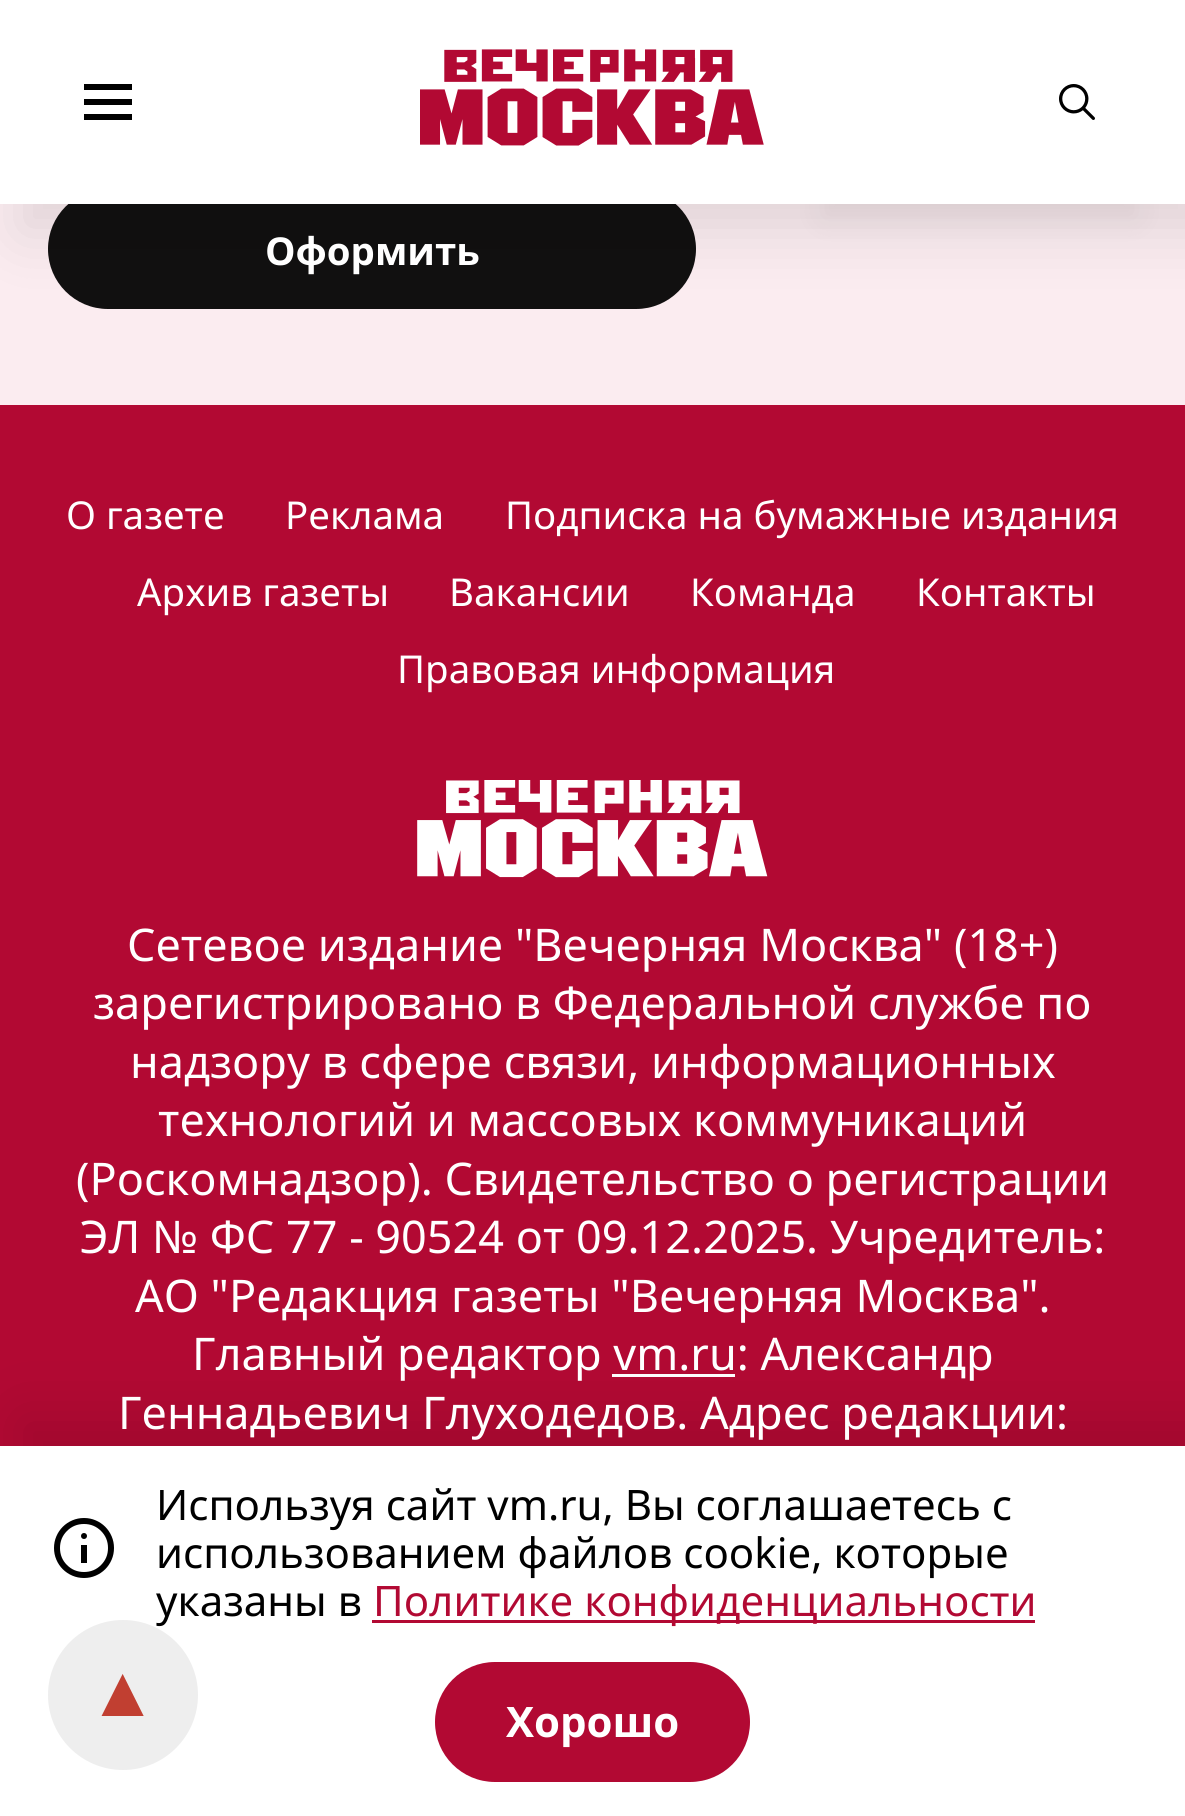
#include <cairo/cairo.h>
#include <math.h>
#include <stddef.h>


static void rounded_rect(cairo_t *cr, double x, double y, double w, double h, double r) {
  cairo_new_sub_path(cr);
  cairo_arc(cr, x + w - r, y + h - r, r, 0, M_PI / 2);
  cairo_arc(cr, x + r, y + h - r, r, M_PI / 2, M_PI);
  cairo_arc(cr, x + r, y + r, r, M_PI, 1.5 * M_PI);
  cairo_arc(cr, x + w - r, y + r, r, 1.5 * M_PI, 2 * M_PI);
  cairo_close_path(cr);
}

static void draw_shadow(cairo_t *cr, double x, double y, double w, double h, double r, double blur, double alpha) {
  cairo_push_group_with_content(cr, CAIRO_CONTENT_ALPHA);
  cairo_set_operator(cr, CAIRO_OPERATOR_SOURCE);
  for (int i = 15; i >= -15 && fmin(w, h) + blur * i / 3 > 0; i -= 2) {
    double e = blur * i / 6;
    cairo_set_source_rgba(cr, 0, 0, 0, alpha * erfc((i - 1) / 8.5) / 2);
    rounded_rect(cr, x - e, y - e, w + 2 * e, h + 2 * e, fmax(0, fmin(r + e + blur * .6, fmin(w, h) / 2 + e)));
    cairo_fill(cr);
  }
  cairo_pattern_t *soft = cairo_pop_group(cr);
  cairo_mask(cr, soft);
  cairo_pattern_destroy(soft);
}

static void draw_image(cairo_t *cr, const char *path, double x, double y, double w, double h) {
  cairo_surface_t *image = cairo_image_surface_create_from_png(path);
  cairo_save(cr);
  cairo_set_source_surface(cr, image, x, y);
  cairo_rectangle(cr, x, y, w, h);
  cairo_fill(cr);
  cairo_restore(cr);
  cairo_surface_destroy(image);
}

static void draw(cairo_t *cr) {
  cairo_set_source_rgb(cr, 251 / 255.0, 236 / 255.0, 240 / 255.0);
  cairo_paint(cr);
  cairo_set_source_rgb(cr, 17 / 255.0, 16 / 255.0, 16 / 255.0);
  rounded_rect(cr, 48, 189, 648, 120, 60);
  cairo_fill(cr);
  cairo_set_source_rgb(cr, 0, 0, 0);
  draw_shadow(cr, 18, 30, 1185, 204, 0, 30, 0.1);
  draw_shadow(cr, 822, 165, 315, 54, 0, 15, 0.05);
  cairo_set_source_rgb(cr, 1, 1, 1);
  cairo_rectangle(cr, 0, 0, 1185, 204);
  cairo_fill(cr);
  cairo_set_source_rgb(cr, 0, 0, 0);
  cairo_rectangle(cr, 84, 99, 48, 6);
  cairo_fill(cr);
  cairo_rectangle(cr, 84, 84, 48, 6);
  cairo_fill(cr);
  cairo_rectangle(cr, 84, 114, 48, 6);
  cairo_fill(cr);
  draw_image(cr, "images/1.png", 420, 49, 344, 97);
  draw_image(cr, "images/2.png", 1059, 84, 36, 36);
  cairo_set_source_rgb(cr, 178 / 255.0, 9 / 255.0, 51 / 255.0);
  cairo_rectangle(cr, 0, 405, 1185, 1041);
  cairo_fill(cr);
  draw_image(cr, "images/3.png", 417, 780, 351, 98);
  cairo_set_source_rgb(cr, 1, 1, 1);
  cairo_rectangle(cr, 612, 1374, 123, 3);
  cairo_fill(cr);
  cairo_set_source_rgb(cr, 0, 0, 0);
  draw_shadow(cr, 18, 1416, 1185, 372, 0, 30, 0.1);
  cairo_set_source_rgb(cr, 1, 1, 1);
  cairo_rectangle(cr, 0, 1446, 1185, 370);
  cairo_fill(cr);
  draw_image(cr, "images/4.png", 54, 1518, 60, 60);
  cairo_set_source_rgb(cr, 178 / 255.0, 9 / 255.0, 51 / 255.0);
  cairo_rectangle(cr, 372, 1620, 663, 3);
  cairo_fill(cr);
  rounded_rect(cr, 435, 1662, 315, 120, 60);
  cairo_fill(cr);
  cairo_select_font_face(cr, "Noto Sans", CAIRO_FONT_SLANT_NORMAL, CAIRO_FONT_WEIGHT_BOLD);
  cairo_set_font_size(cr, 38.4);
  cairo_set_source_rgb(cr, 1, 1, 1);
  cairo_move_to(cr, 265, 265);
  cairo_show_text(cr, "Оформить");
  cairo_select_font_face(cr, "Noto Sans", CAIRO_FONT_SLANT_NORMAL, CAIRO_FONT_WEIGHT_NORMAL);
  cairo_move_to(cr, 66, 529);
  cairo_show_text(cr, "О газете");
  cairo_move_to(cr, 285, 529);
  cairo_show_text(cr, "Реклама");
  cairo_move_to(cr, 505, 529);
  cairo_show_text(cr, "Подписка на бумажные издания");
  cairo_move_to(cr, 137, 606);
  cairo_show_text(cr, "Архив газеты");
  cairo_move_to(cr, 449, 606);
  cairo_show_text(cr, "Вакансии");
  cairo_move_to(cr, 690, 606);
  cairo_show_text(cr, "Команда");
  cairo_move_to(cr, 916, 606);
  cairo_show_text(cr, "Контакты");
  cairo_move_to(cr, 397, 683);
  cairo_show_text(cr, "Правовая информация");
  cairo_set_font_size(cr, 45);
  cairo_move_to(cr, 127, 961);
  cairo_show_text(cr, "Сетевое издание \"Вечерняя Москва\" (18+)");
  cairo_move_to(cr, 93, 1019);
  cairo_show_text(cr, "зарегистрировано в Федеральной службе по");
  cairo_move_to(cr, 130, 1078);
  cairo_show_text(cr, "надзору в сфере связи, информационных");
  cairo_move_to(cr, 158, 1136);
  cairo_show_text(cr, "технологий и массовых коммуникаций");
  cairo_move_to(cr, 76, 1195);
  cairo_show_text(cr, "(Роскомнадзор). Свидетельство о регистрации");
  cairo_move_to(cr, 80, 1253);
  cairo_show_text(cr, "ЭЛ № ФС 77 - 90524 от 09.12.2025. Учредитель:");
  cairo_move_to(cr, 135, 1312);
  cairo_show_text(cr, "АО \"Редакция газеты \"Вечерняя Москва\".");
  cairo_move_to(cr, 192, 1370);
  cairo_show_text(cr, "Главный редактор vm.ru: Александр");
  cairo_move_to(cr, 118, 1429);
  cairo_show_text(cr, "Геннадьевич Глуходедов. Адрес редакции:");
  cairo_set_font_size(cr, 42);
  cairo_set_source_rgb(cr, 0, 0, 0);
  cairo_move_to(cr, 156, 1520);
  cairo_show_text(cr, "Используя сайт vm.ru, Вы соглашаетесь с");
  cairo_move_to(cr, 156, 1568);
  cairo_show_text(cr, "использованием файлов cookie, которые");
  cairo_move_to(cr, 156, 1616);
  cairo_show_text(cr, "указаны в");
  cairo_set_source_rgb(cr, 238 / 255.0, 238 / 255.0, 238 / 255.0);
  cairo_new_path(cr);
  cairo_arc(cr, 123, 1695, 75, 0, 2 * M_PI);
  cairo_fill(cr);
  cairo_select_font_face(cr, "Liberation Sans", CAIRO_FONT_SLANT_NORMAL, CAIRO_FONT_WEIGHT_NORMAL);
  cairo_set_font_size(cr, 72);
  cairo_set_source_rgb(cr, 193 / 255.0, 63 / 255.0, 49 / 255.0);
  cairo_move_to(cr, 87, 1716);
  cairo_show_text(cr, "▲");
  cairo_select_font_face(cr, "Noto Sans", CAIRO_FONT_SLANT_NORMAL, CAIRO_FONT_WEIGHT_NORMAL);
  cairo_set_font_size(cr, 42);
  cairo_set_source_rgb(cr, 178 / 255.0, 9 / 255.0, 51 / 255.0);
  cairo_move_to(cr, 373, 1616);
  cairo_show_text(cr, "Политике конфиденциальности");
  cairo_select_font_face(cr, "Noto Sans", CAIRO_FONT_SLANT_NORMAL, CAIRO_FONT_WEIGHT_BOLD);
  cairo_set_source_rgb(cr, 1, 1, 1);
  cairo_move_to(cr, 506, 1737);
  cairo_show_text(cr, "Хорошо");
}

int main(void) {
  cairo_surface_t *surface = cairo_image_surface_create(CAIRO_FORMAT_RGB24, 1185, 1816);
  cairo_t *cr = cairo_create(surface);
  cairo_font_options_t *options = cairo_font_options_create();
  cairo_font_options_set_hint_metrics(options, CAIRO_HINT_METRICS_OFF);
  cairo_font_options_set_hint_style(options, CAIRO_HINT_STYLE_NONE);
  cairo_set_font_options(cr, options);
  cairo_set_miter_limit(cr, 4);
  draw(cr);
  cairo_surface_write_to_png(surface, "out.png");
  cairo_font_options_destroy(options);
  cairo_destroy(cr);
  cairo_surface_destroy(surface);
  return 0;
}
